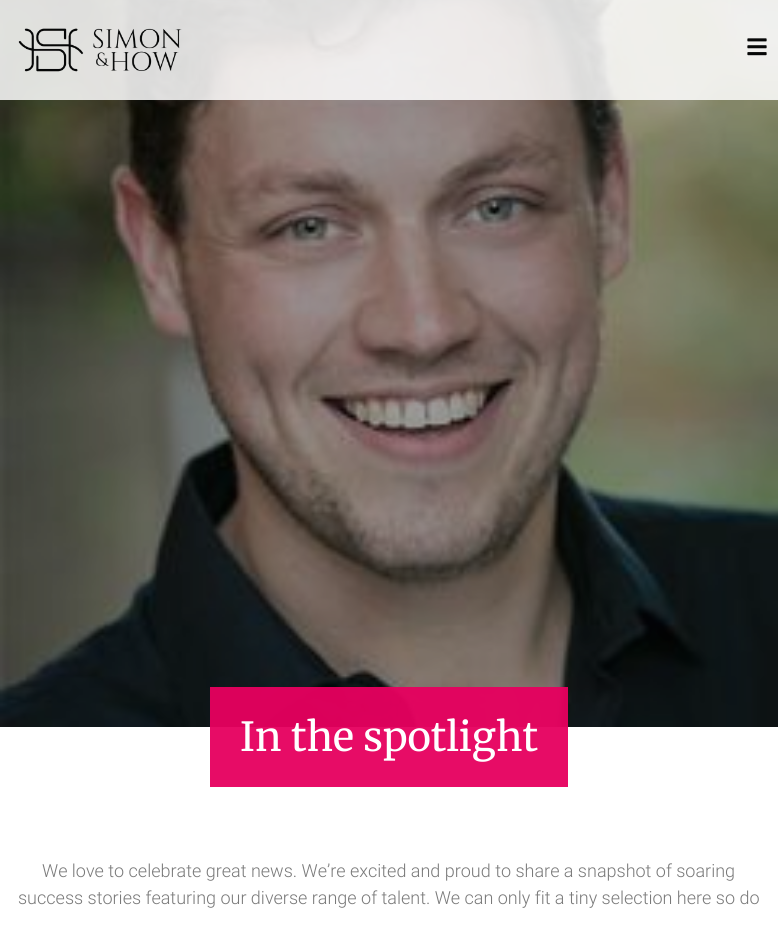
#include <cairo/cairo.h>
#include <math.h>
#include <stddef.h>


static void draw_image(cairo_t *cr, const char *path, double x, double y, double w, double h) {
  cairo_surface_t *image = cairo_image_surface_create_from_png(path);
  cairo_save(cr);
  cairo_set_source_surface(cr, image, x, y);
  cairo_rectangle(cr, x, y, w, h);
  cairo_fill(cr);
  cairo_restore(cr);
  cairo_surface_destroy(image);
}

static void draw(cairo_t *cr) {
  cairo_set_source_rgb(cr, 1, 1, 1);
  cairo_paint(cr);
  draw_image(cr, "images/3.png", 0, 0, 778, 727);
  cairo_set_source_rgba(cr, 1, 1, 1, 0.85);
  cairo_rectangle(cr, 0, 0, 778, 100);
  cairo_fill(cr);
  draw_image(cr, "images/1.png", 18, 28, 164, 44);
  draw_image(cr, "images/2.png", 747, 38, 20, 18);
  cairo_set_source_rgba(cr, 230 / 255.0, 0, 95 / 255.0, 0.95);
  cairo_rectangle(cr, 210, 687, 358, 100);
  cairo_fill(cr);
  cairo_select_font_face(cr, "Merriweather", CAIRO_FONT_SLANT_NORMAL, CAIRO_FONT_WEIGHT_NORMAL);
  cairo_set_font_size(cr, 40);
  cairo_set_source_rgb(cr, 1, 1, 1);
  cairo_move_to(cr, 240, 751);
  cairo_show_text(cr, "In the spotlight");
  cairo_select_font_face(cr, "Roboto Light", CAIRO_FONT_SLANT_NORMAL, CAIRO_FONT_WEIGHT_NORMAL);
  cairo_set_font_size(cr, 18);
  cairo_set_source_rgb(cr, 122 / 255.0, 122 / 255.0, 122 / 255.0);
  cairo_move_to(cr, 42, 877);
  cairo_show_text(cr, "We love to celebrate great news. We’re excited and proud to share a snapshot of soaring");
  cairo_move_to(cr, 18, 904);
  cairo_show_text(cr, "success stories featuring our diverse range of talent. We can only fit a tiny selection here so do");
}

int main(void) {
  cairo_surface_t *surface = cairo_image_surface_create(CAIRO_FORMAT_RGB24, 778, 926);
  cairo_t *cr = cairo_create(surface);
  cairo_font_options_t *options = cairo_font_options_create();
  cairo_font_options_set_hint_metrics(options, CAIRO_HINT_METRICS_OFF);
  cairo_font_options_set_hint_style(options, CAIRO_HINT_STYLE_NONE);
  cairo_set_font_options(cr, options);
  cairo_set_miter_limit(cr, 4);
  draw(cr);
  cairo_surface_write_to_png(surface, "out.png");
  cairo_font_options_destroy(options);
  cairo_destroy(cr);
  cairo_surface_destroy(surface);
  return 0;
}
